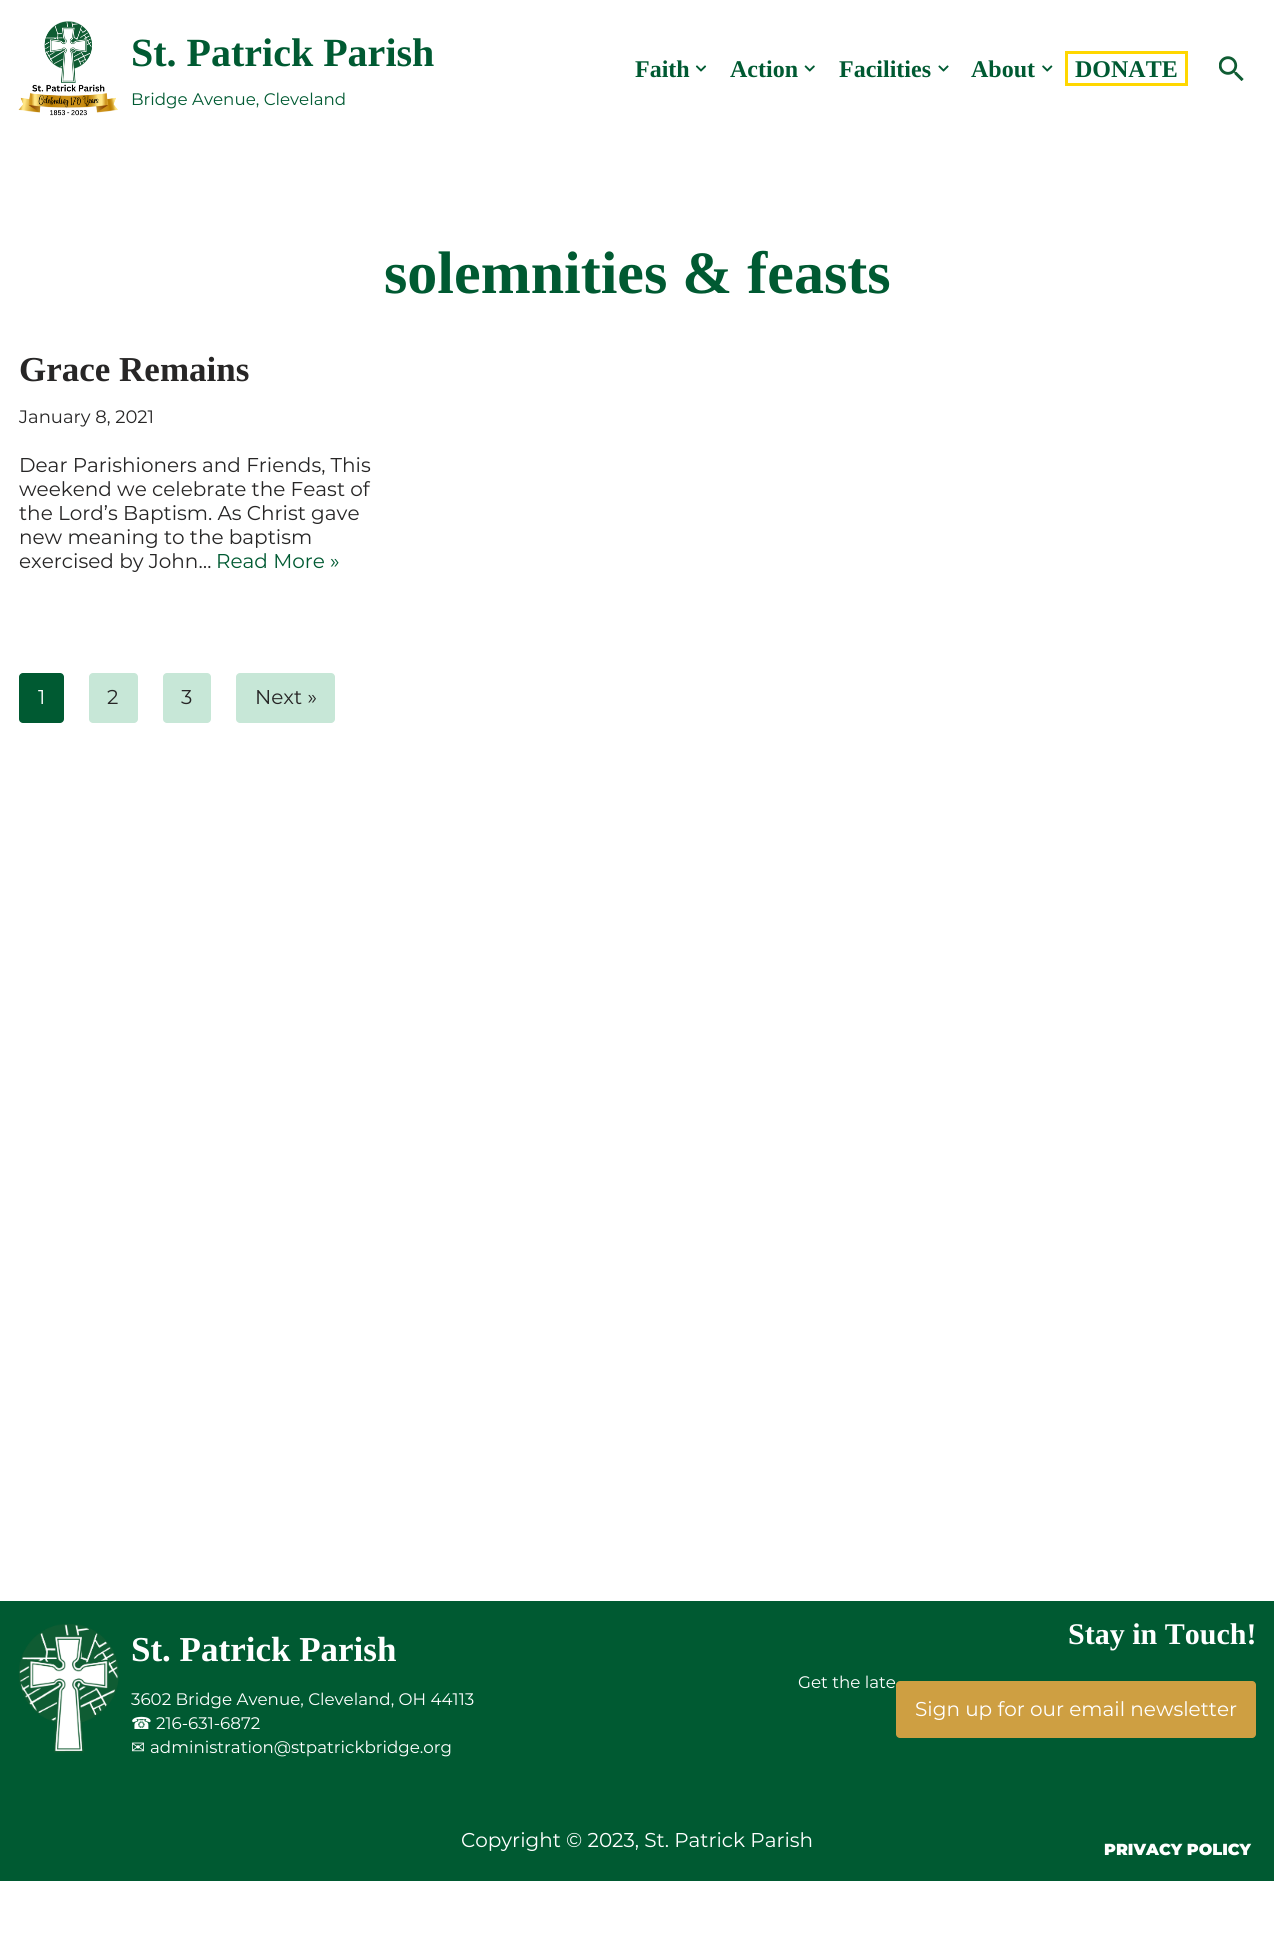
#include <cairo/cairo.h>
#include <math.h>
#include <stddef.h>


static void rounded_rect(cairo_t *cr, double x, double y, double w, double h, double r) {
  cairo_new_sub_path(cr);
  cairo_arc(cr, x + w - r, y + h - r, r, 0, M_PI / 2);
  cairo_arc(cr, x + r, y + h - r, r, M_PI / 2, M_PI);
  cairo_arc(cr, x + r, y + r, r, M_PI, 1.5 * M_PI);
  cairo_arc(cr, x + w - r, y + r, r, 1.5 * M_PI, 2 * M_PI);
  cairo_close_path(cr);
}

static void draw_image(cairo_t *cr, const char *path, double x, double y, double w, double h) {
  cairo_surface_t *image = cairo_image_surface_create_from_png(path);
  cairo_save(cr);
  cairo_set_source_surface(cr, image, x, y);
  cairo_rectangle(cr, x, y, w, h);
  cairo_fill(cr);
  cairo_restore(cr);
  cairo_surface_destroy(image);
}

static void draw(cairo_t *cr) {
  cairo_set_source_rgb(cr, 1, 1, 1);
  cairo_paint(cr);
  draw_image(cr, "images/1.png", 18, 21, 100, 95);
  draw_image(cr, "images/2.png", 695, 65, 12, 7);
  draw_image(cr, "images/3.png", 804, 65, 11, 7);
  draw_image(cr, "images/4.png", 938, 65, 11, 7);
  draw_image(cr, "images/5.png", 1042, 65, 11, 7);
  cairo_rectangle(cr, 1066.5, 52.5, 120, 32);
  cairo_set_source_rgb(cr, 1, 215 / 255.0, 0);
  cairo_set_line_width(cr, 3);
  cairo_stroke(cr);
  draw_image(cr, "images/6.png", 1219, 56, 25, 25);
  cairo_set_source_rgb(cr, 0, 90 / 255.0, 50 / 255.0);
  rounded_rect(cr, 19, 673, 45, 50, 4);
  cairo_fill(cr);
  cairo_set_source_rgb(cr, 199 / 255.0, 231 / 255.0, 215 / 255.0);
  rounded_rect(cr, 89, 673, 49, 50, 4);
  cairo_fill(cr);
  rounded_rect(cr, 163, 673, 48, 50, 4);
  cairo_fill(cr);
  rounded_rect(cr, 236, 673, 99, 50, 4);
  cairo_fill(cr);
  cairo_set_source_rgb(cr, 0, 90 / 255.0, 50 / 255.0);
  cairo_rectangle(cr, 0, 1601, 1274, 280);
  cairo_fill(cr);
  draw_image(cr, "images/7.png", 19, 1624, 100, 129);
  cairo_set_source_rgb(cr, 206 / 255.0, 159 / 255.0, 66 / 255.0);
  rounded_rect(cr, 896, 1681, 360, 57, 4);
  cairo_fill(cr);
  cairo_select_font_face(cr, "Liberation Serif", CAIRO_FONT_SLANT_NORMAL, CAIRO_FONT_WEIGHT_BOLD);
  cairo_set_font_size(cr, 40);
  cairo_set_source_rgb(cr, 0, 90 / 255.0, 50 / 255.0);
  cairo_move_to(cr, 131, 66);
  cairo_show_text(cr, "St. Patrick Parish");
  cairo_select_font_face(cr, "Montserrat", CAIRO_FONT_SLANT_NORMAL, CAIRO_FONT_WEIGHT_NORMAL);
  cairo_set_font_size(cr, 16.7);
  cairo_move_to(cr, 131, 105);
  cairo_show_text(cr, "Bridge Avenue, Cleveland");
  cairo_select_font_face(cr, "Liberation Serif", CAIRO_FONT_SLANT_NORMAL, CAIRO_FONT_WEIGHT_BOLD);
  cairo_set_font_size(cr, 24);
  cairo_move_to(cr, 635, 77);
  cairo_show_text(cr, "Faith");
  cairo_move_to(cr, 730, 77);
  cairo_show_text(cr, "Action");
  cairo_move_to(cr, 839, 77);
  cairo_show_text(cr, "Facilities");
  cairo_move_to(cr, 971, 77);
  cairo_show_text(cr, "About");
  cairo_move_to(cr, 1075, 77);
  cairo_show_text(cr, "DONATE");
  cairo_set_font_size(cr, 60);
  cairo_move_to(cr, 384, 293);
  cairo_show_text(cr, "solemnities & feasts");
  cairo_set_font_size(cr, 35);
  cairo_set_source_rgb(cr, 39 / 255.0, 38 / 255.0, 38 / 255.0);
  cairo_move_to(cr, 19, 381);
  cairo_show_text(cr, "Grace Remains");
  cairo_select_font_face(cr, "Montserrat", CAIRO_FONT_SLANT_NORMAL, CAIRO_FONT_WEIGHT_NORMAL);
  cairo_set_font_size(cr, 18);
  cairo_move_to(cr, 19, 423);
  cairo_show_text(cr, "January 8, 2021");
  cairo_set_font_size(cr, 20);
  cairo_move_to(cr, 19, 472);
  cairo_show_text(cr, "Dear Parishioners and Friends, This");
  cairo_move_to(cr, 19, 496);
  cairo_show_text(cr, "weekend we celebrate the Feast of");
  cairo_move_to(cr, 19, 520);
  cairo_show_text(cr, "the Lord’s Baptism. As Christ gave");
  cairo_move_to(cr, 19, 544);
  cairo_show_text(cr, "new meaning to the baptism");
  cairo_move_to(cr, 19, 568);
  cairo_show_text(cr, "exercised by John…");
  cairo_set_source_rgb(cr, 0, 90 / 255.0, 50 / 255.0);
  cairo_move_to(cr, 216, 568);
  cairo_show_text(cr, "Read More »");
  cairo_set_source_rgb(cr, 1, 1, 1);
  cairo_move_to(cr, 38, 704);
  cairo_show_text(cr, "1");
  cairo_set_source_rgb(cr, 39 / 255.0, 38 / 255.0, 38 / 255.0);
  cairo_move_to(cr, 107, 704);
  cairo_show_text(cr, "2");
  cairo_move_to(cr, 181, 704);
  cairo_show_text(cr, "3");
  cairo_move_to(cr, 255, 704);
  cairo_show_text(cr, "Next »");
  cairo_select_font_face(cr, "Liberation Serif", CAIRO_FONT_SLANT_NORMAL, CAIRO_FONT_WEIGHT_BOLD);
  cairo_set_font_size(cr, 35);
  cairo_set_source_rgb(cr, 1, 1, 1);
  cairo_move_to(cr, 131, 1661);
  cairo_show_text(cr, "St. Patrick Parish");
  cairo_select_font_face(cr, "Montserrat", CAIRO_FONT_SLANT_NORMAL, CAIRO_FONT_WEIGHT_NORMAL);
  cairo_set_font_size(cr, 16.7);
  cairo_move_to(cr, 131, 1705);
  cairo_show_text(cr, "3602 Bridge Avenue, Cleveland, OH 44113");
  cairo_select_font_face(cr, "DejaVu Sans", CAIRO_FONT_SLANT_NORMAL, CAIRO_FONT_WEIGHT_NORMAL);
  cairo_move_to(cr, 131, 1729);
  cairo_show_text(cr, "☎");
  cairo_select_font_face(cr, "Montserrat", CAIRO_FONT_SLANT_NORMAL, CAIRO_FONT_WEIGHT_NORMAL);
  cairo_move_to(cr, 156, 1729);
  cairo_show_text(cr, "216-631-6872");
  cairo_select_font_face(cr, "DejaVu Sans", CAIRO_FONT_SLANT_NORMAL, CAIRO_FONT_WEIGHT_NORMAL);
  cairo_move_to(cr, 131, 1753);
  cairo_show_text(cr, "✉");
  cairo_select_font_face(cr, "Montserrat", CAIRO_FONT_SLANT_NORMAL, CAIRO_FONT_WEIGHT_NORMAL);
  cairo_move_to(cr, 150, 1753);
  cairo_show_text(cr, "administration@stpatrickbridge.org");
  cairo_select_font_face(cr, "Liberation Serif", CAIRO_FONT_SLANT_NORMAL, CAIRO_FONT_WEIGHT_BOLD);
  cairo_set_font_size(cr, 30);
  cairo_move_to(cr, 1068, 1644);
  cairo_show_text(cr, "Stay in Touch!");
  cairo_select_font_face(cr, "Montserrat", CAIRO_FONT_SLANT_NORMAL, CAIRO_FONT_WEIGHT_NORMAL);
  cairo_set_font_size(cr, 16.7);
  cairo_move_to(cr, 798, 1688);
  cairo_show_text(cr, "Get the late");
  cairo_set_font_size(cr, 20);
  cairo_move_to(cr, 915, 1716);
  cairo_show_text(cr, "Sign up for our email newsletter");
  cairo_move_to(cr, 461, 1847);
  cairo_show_text(cr, "Copyright © 2023, St. Patrick Parish");
  cairo_select_font_face(cr, "Montserrat Black", CAIRO_FONT_SLANT_NORMAL, CAIRO_FONT_WEIGHT_NORMAL);
  cairo_set_font_size(cr, 16);
  cairo_move_to(cr, 1104, 1855);
  cairo_show_text(cr, "PRIVACY POLICY");
}

int main(void) {
  cairo_surface_t *surface = cairo_image_surface_create(CAIRO_FORMAT_RGB24, 1274, 1934);
  cairo_t *cr = cairo_create(surface);
  cairo_font_options_t *options = cairo_font_options_create();
  cairo_font_options_set_hint_metrics(options, CAIRO_HINT_METRICS_OFF);
  cairo_font_options_set_hint_style(options, CAIRO_HINT_STYLE_NONE);
  cairo_set_font_options(cr, options);
  cairo_set_miter_limit(cr, 4);
  draw(cr);
  cairo_surface_write_to_png(surface, "out.png");
  cairo_font_options_destroy(options);
  cairo_destroy(cr);
  cairo_surface_destroy(surface);
  return 0;
}
